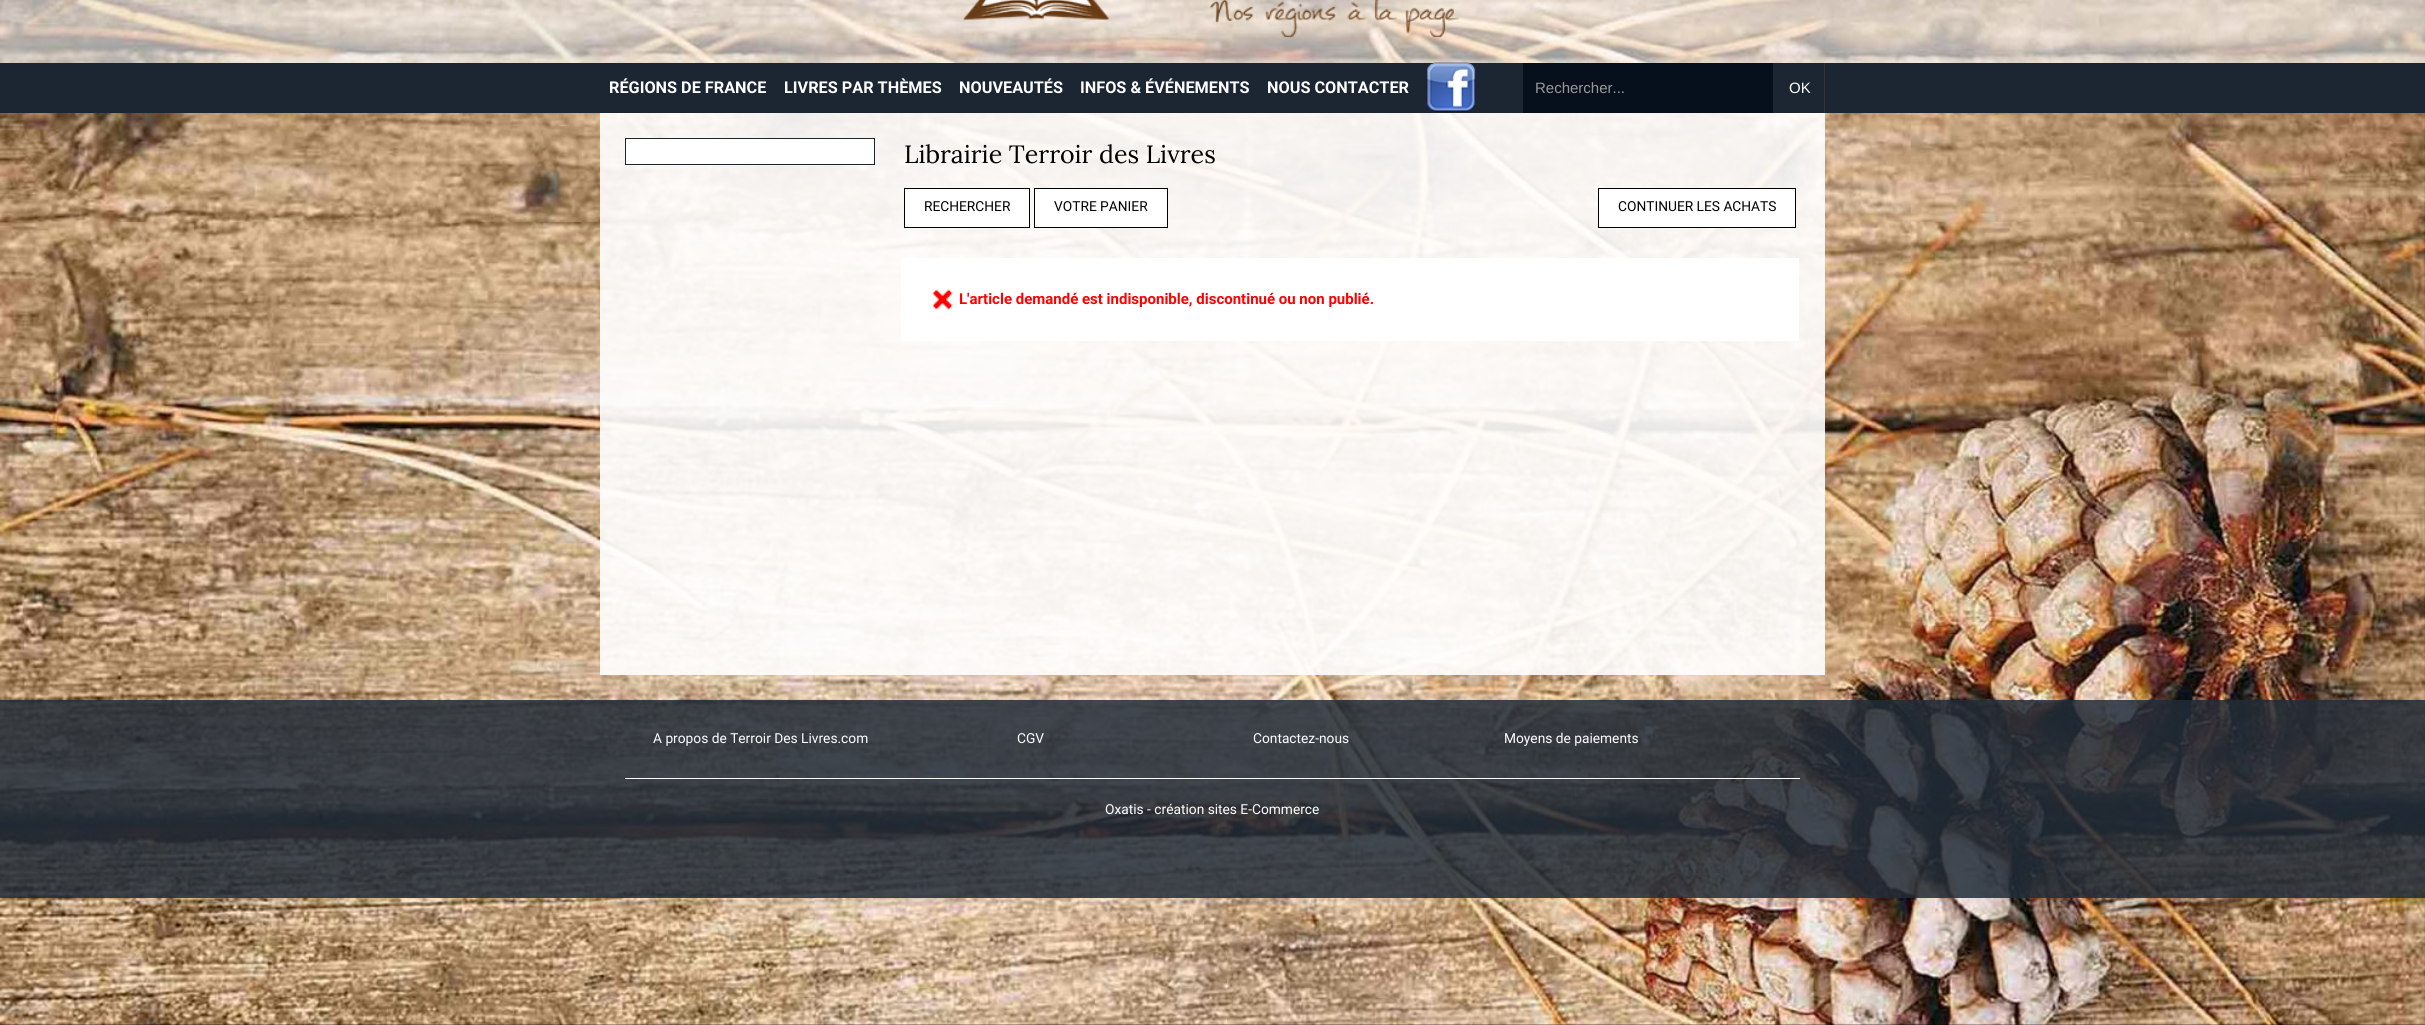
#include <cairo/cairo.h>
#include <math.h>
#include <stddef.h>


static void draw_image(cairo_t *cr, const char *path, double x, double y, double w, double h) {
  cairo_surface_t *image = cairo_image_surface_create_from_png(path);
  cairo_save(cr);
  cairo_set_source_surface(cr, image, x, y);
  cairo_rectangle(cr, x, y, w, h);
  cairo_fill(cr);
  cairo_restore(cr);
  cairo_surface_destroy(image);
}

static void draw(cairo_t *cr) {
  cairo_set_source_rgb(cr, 0, 0, 0);
  cairo_paint(cr);
  draw_image(cr, "images/1.png", 0, 0, 2425, 1025);
  cairo_set_source_rgba(cr, 1, 1, 1, 0.6);
  cairo_rectangle(cr, 0, 0, 2425, 63);
  cairo_fill(cr);
  cairo_set_source_rgb(cr, 27 / 255.0, 38 / 255.0, 50 / 255.0);
  cairo_rectangle(cr, 0, 63, 2425, 50);
  cairo_fill(cr);
  draw_image(cr, "images/2.png", 963, 0, 497, 38);
  draw_image(cr, "images/3.png", 1426, 62, 50, 50);
  cairo_set_source_rgb(cr, 5 / 255.0, 16 / 255.0, 28 / 255.0);
  cairo_rectangle(cr, 1523, 63, 250, 50);
  cairo_fill(cr);
  cairo_set_source_rgb(cr, 51 / 255.0, 51 / 255.0, 51 / 255.0);
  cairo_rectangle(cr, 1824, 63, 1, 50);
  cairo_fill(cr);
  cairo_set_source_rgba(cr, 1, 1, 1, 0.9);
  cairo_rectangle(cr, 600, 113, 1225, 562);
  cairo_fill(cr);
  cairo_set_source_rgb(cr, 1, 1, 1);
  cairo_rectangle(cr, 625.5, 138.5, 249, 26);
  cairo_fill_preserve(cr);
  cairo_set_source_rgb(cr, 27 / 255.0, 38 / 255.0, 50 / 255.0);
  cairo_set_line_width(cr, 1);
  cairo_stroke(cr);
  cairo_set_source_rgb(cr, 1, 1, 1);
  cairo_rectangle(cr, 904.5, 188.5, 125, 39);
  cairo_fill_preserve(cr);
  cairo_set_source_rgb(cr, 0, 0, 0);
  cairo_stroke(cr);
  cairo_set_source_rgb(cr, 1, 1, 1);
  cairo_rectangle(cr, 1034.5, 188.5, 133, 39);
  cairo_fill_preserve(cr);
  cairo_set_source_rgb(cr, 0, 0, 0);
  cairo_stroke(cr);
  cairo_set_source_rgb(cr, 1, 1, 1);
  cairo_rectangle(cr, 1598.5, 188.5, 197, 39);
  cairo_fill_preserve(cr);
  cairo_set_source_rgb(cr, 0, 0, 0);
  cairo_stroke(cr);
  cairo_set_source_rgb(cr, 1, 1, 1);
  cairo_rectangle(cr, 901, 258, 898, 83);
  cairo_fill(cr);
  draw_image(cr, "images/4.png", 932, 289, 21, 21);
  cairo_set_source_rgba(cr, 33 / 255.0, 44 / 255.0, 56 / 255.0, 0.85);
  cairo_rectangle(cr, 0, 700, 2425, 198);
  cairo_fill(cr);
  cairo_set_source_rgb(cr, 1, 1, 1);
  cairo_rectangle(cr, 625, 778, 1175, 1);
  cairo_fill(cr);
  cairo_select_font_face(cr, "Roboto", CAIRO_FONT_SLANT_NORMAL, CAIRO_FONT_WEIGHT_BOLD);
  cairo_set_font_size(cr, 16.25);
  cairo_move_to(cr, 609, 93);
  cairo_show_text(cr, "RÉGIONS DE FRANCE");
  cairo_move_to(cr, 784, 93);
  cairo_show_text(cr, "LIVRES PAR THÈMES");
  cairo_move_to(cr, 959, 93);
  cairo_show_text(cr, "NOUVEAUTÉS");
  cairo_move_to(cr, 1080, 93);
  cairo_show_text(cr, "INFOS & ÉVÉNEMENTS");
  cairo_move_to(cr, 1267, 93);
  cairo_show_text(cr, "NOUS CONTACTER");
  cairo_select_font_face(cr, "Liberation Sans", CAIRO_FONT_SLANT_NORMAL, CAIRO_FONT_WEIGHT_NORMAL);
  cairo_set_font_size(cr, 15);
  cairo_set_source_rgb(cr, 153 / 255.0, 153 / 255.0, 153 / 255.0);
  cairo_move_to(cr, 1535, 93);
  cairo_show_text(cr, "Rechercher...");
  cairo_set_source_rgb(cr, 1, 1, 1);
  cairo_move_to(cr, 1789, 93);
  cairo_show_text(cr, "OK");
  cairo_select_font_face(cr, "Lora", CAIRO_FONT_SLANT_NORMAL, CAIRO_FONT_WEIGHT_NORMAL);
  cairo_set_font_size(cr, 25);
  cairo_set_source_rgb(cr, 0, 0, 0);
  cairo_move_to(cr, 904, 163);
  cairo_show_text(cr, "Librairie Terroir des Livres");
  cairo_select_font_face(cr, "Roboto", CAIRO_FONT_SLANT_NORMAL, CAIRO_FONT_WEIGHT_NORMAL);
  cairo_set_font_size(cr, 13.75);
  cairo_move_to(cr, 924, 211);
  cairo_show_text(cr, "RECHERCHER");
  cairo_move_to(cr, 1054, 211);
  cairo_show_text(cr, "VOTRE PANIER");
  cairo_move_to(cr, 1618, 211);
  cairo_show_text(cr, "CONTINUER LES ACHATS");
  cairo_select_font_face(cr, "Roboto", CAIRO_FONT_SLANT_NORMAL, CAIRO_FONT_WEIGHT_BOLD);
  cairo_set_font_size(cr, 15);
  cairo_set_source_rgb(cr, 1, 0, 0);
  cairo_move_to(cr, 959, 304);
  cairo_show_text(cr, "L'article demandé est indisponible, discontinué ou non publié.");
  cairo_select_font_face(cr, "Roboto", CAIRO_FONT_SLANT_NORMAL, CAIRO_FONT_WEIGHT_NORMAL);
  cairo_set_font_size(cr, 13.75);
  cairo_set_source_rgb(cr, 1, 1, 1);
  cairo_move_to(cr, 653, 743);
  cairo_show_text(cr, "A propos de Terroir Des Livres.com");
  cairo_move_to(cr, 1017, 743);
  cairo_show_text(cr, "CGV");
  cairo_move_to(cr, 1253, 743);
  cairo_show_text(cr, "Contactez-nous");
  cairo_move_to(cr, 1504, 743);
  cairo_show_text(cr, "Moyens de paiements");
  cairo_move_to(cr, 1105, 814);
  cairo_show_text(cr, "Oxatis - création sites E-Commerce");
}

int main(void) {
  cairo_surface_t *surface = cairo_image_surface_create(CAIRO_FORMAT_RGB24, 2425, 1025);
  cairo_t *cr = cairo_create(surface);
  cairo_font_options_t *options = cairo_font_options_create();
  cairo_font_options_set_hint_metrics(options, CAIRO_HINT_METRICS_OFF);
  cairo_font_options_set_hint_style(options, CAIRO_HINT_STYLE_NONE);
  cairo_set_font_options(cr, options);
  cairo_set_miter_limit(cr, 4);
  draw(cr);
  cairo_surface_write_to_png(surface, "out.png");
  cairo_font_options_destroy(options);
  cairo_destroy(cr);
  cairo_surface_destroy(surface);
  return 0;
}
